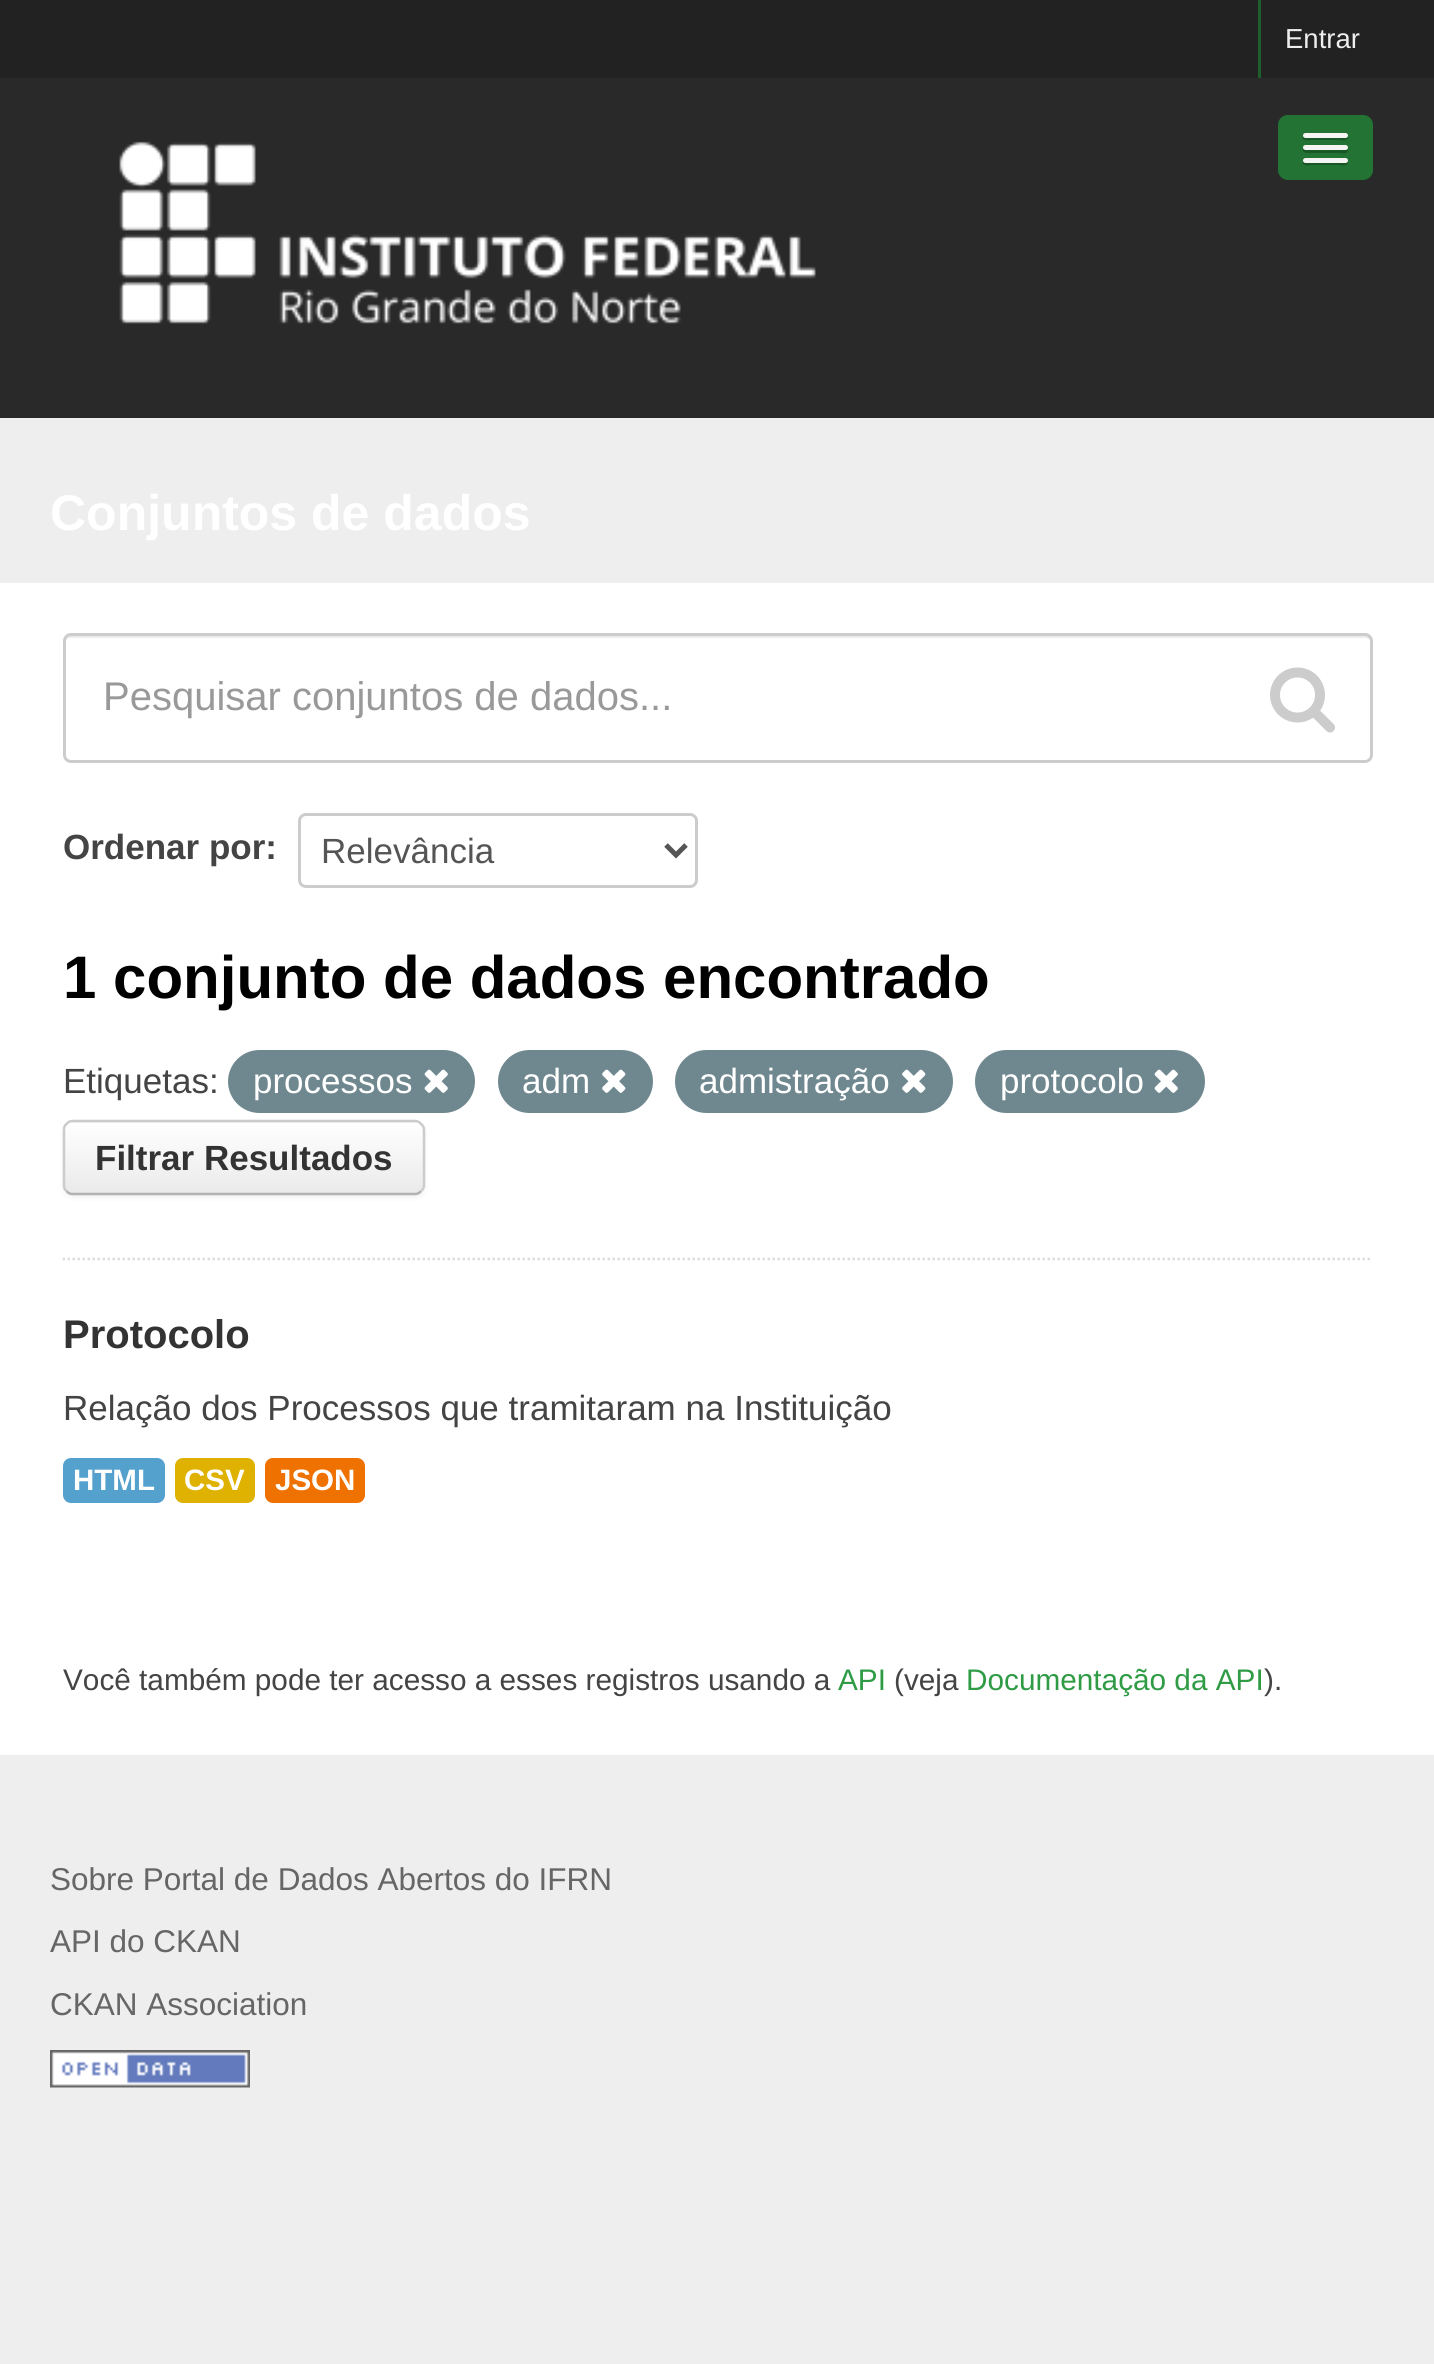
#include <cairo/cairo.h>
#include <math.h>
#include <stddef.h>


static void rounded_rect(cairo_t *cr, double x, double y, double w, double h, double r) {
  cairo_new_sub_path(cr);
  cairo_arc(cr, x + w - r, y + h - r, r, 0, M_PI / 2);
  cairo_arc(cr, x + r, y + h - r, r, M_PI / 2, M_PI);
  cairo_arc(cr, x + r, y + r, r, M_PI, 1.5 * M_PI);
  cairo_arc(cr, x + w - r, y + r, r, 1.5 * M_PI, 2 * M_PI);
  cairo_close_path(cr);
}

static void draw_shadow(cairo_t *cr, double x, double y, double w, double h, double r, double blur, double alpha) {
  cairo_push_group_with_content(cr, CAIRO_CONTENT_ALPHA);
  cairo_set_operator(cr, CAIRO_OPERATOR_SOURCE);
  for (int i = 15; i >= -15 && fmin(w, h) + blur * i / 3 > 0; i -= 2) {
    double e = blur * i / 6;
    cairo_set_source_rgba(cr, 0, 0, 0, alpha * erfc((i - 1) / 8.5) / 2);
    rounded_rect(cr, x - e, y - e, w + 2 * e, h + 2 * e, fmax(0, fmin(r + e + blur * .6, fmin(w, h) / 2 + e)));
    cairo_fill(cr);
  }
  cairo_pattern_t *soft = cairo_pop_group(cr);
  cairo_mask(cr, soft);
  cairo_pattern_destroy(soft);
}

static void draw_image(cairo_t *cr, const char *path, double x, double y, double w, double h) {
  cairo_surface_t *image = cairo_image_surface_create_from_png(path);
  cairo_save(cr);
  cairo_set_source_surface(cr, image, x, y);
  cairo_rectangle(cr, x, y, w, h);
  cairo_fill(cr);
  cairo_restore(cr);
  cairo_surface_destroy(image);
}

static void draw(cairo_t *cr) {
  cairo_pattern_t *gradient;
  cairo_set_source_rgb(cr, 238 / 255.0, 238 / 255.0, 238 / 255.0);
  cairo_paint(cr);
  cairo_set_source_rgb(cr, 34 / 255.0, 34 / 255.0, 34 / 255.0);
  cairo_rectangle(cr, 0, 0, 1434, 78);
  cairo_fill(cr);
  cairo_set_source_rgb(cr, 29 / 255.0, 96 / 255.0, 43 / 255.0);
  cairo_rectangle(cr, 1258, 0, 3, 78);
  cairo_fill(cr);
  cairo_set_source_rgb(cr, 41 / 255.0, 41 / 255.0, 41 / 255.0);
  cairo_rectangle(cr, 0, 78, 1434, 340);
  cairo_fill(cr);
  draw_image(cr, "images/1.png", 119, 141, 697, 183);
  cairo_set_source_rgb(cr, 35 / 255.0, 116 / 255.0, 52 / 255.0);
  rounded_rect(cr, 1278, 115, 95, 65, 10);
  cairo_fill(cr);
  cairo_set_source_rgb(cr, 26 / 255.0, 87 / 255.0, 39 / 255.0);
  cairo_new_path(cr);
  cairo_move_to(cr, 1303, 137);
  cairo_curve_to(cr, 1301, 142, 1311, 140, 1312, 140);
  cairo_line_to(cr, 1339, 140);
  cairo_curve_to(cr, 1340, 140, 1347, 142, 1348, 138);
  cairo_line_to(cr, 1347, 136);
  cairo_line_to(cr, 1345, 137);
  cairo_line_to(cr, 1305, 137);
  cairo_close_path(cr);
  cairo_fill(cr);
  cairo_set_source_rgb(cr, 245 / 255.0, 245 / 255.0, 245 / 255.0);
  rounded_rect(cr, 1303, 133, 45, 5, 2.5);
  cairo_fill(cr);
  cairo_set_source_rgb(cr, 26 / 255.0, 87 / 255.0, 39 / 255.0);
  cairo_new_path(cr);
  cairo_move_to(cr, 1303, 149);
  cairo_curve_to(cr, 1301, 154, 1312, 153, 1312, 153);
  cairo_line_to(cr, 1339, 153);
  cairo_curve_to(cr, 1340, 153, 1347, 155, 1348, 151);
  cairo_line_to(cr, 1347, 149);
  cairo_line_to(cr, 1345, 150);
  cairo_curve_to(cr, 1342, 150, 1305, 151, 1303, 149);
  cairo_close_path(cr);
  cairo_fill(cr);
  cairo_set_source_rgb(cr, 245 / 255.0, 245 / 255.0, 245 / 255.0);
  rounded_rect(cr, 1303, 145, 45, 5, 2.5);
  cairo_fill(cr);
  cairo_set_source_rgb(cr, 26 / 255.0, 87 / 255.0, 39 / 255.0);
  cairo_new_path(cr);
  cairo_move_to(cr, 1303, 162);
  cairo_curve_to(cr, 1301, 167, 1311, 165, 1312, 165);
  cairo_line_to(cr, 1339, 165);
  cairo_curve_to(cr, 1340, 165, 1347, 167, 1348, 163);
  cairo_line_to(cr, 1347, 161);
  cairo_line_to(cr, 1345, 162);
  cairo_line_to(cr, 1305, 162);
  cairo_close_path(cr);
  cairo_fill(cr);
  cairo_set_source_rgb(cr, 245 / 255.0, 245 / 255.0, 245 / 255.0);
  rounded_rect(cr, 1303, 158, 45, 5, 2.5);
  cairo_fill(cr);
  cairo_set_source_rgb(cr, 1, 1, 1);
  cairo_rectangle(cr, 0, 583, 1434, 1172);
  cairo_fill(cr);
  cairo_new_path(cr);
  cairo_move_to(cr, 62.5, 1259);
  cairo_line_to(cr, 1372.5, 1259);
  cairo_set_source_rgb(cr, 221 / 255.0, 221 / 255.0, 221 / 255.0);
  cairo_set_line_width(cr, 2.5);
  cairo_set_dash(cr, (double[]){2.5, 2.5}, 2, 0);
  cairo_stroke(cr);
  cairo_set_source_rgb(cr, 236 / 255.0, 236 / 255.0, 236 / 255.0);
  cairo_new_path(cr);
  cairo_move_to(cr, 70, 638);
  cairo_line_to(cr, 1365, 638);
  cairo_curve_to(cr, 1368, 638, 1370, 640, 1370, 642);
  cairo_curve_to(cr, 1370, 639, 1369, 635, 1365, 635);
  cairo_line_to(cr, 70, 635);
  cairo_curve_to(cr, 66, 635, 65, 639, 65, 642);
  cairo_curve_to(cr, 65, 640, 67, 638, 70, 638);
  cairo_close_path(cr);
  cairo_fill(cr);
  rounded_rect(cr, 64.5, 634.5, 1307, 127, 6.5);
  cairo_set_source_rgb(cr, 204 / 255.0, 204 / 255.0, 204 / 255.0);
  cairo_set_line_width(cr, 3);
  cairo_set_dash(cr, NULL, 0, 0);
  cairo_stroke(cr);
  draw_image(cr, "images/2.png", 1270, 667, 65, 66);
  rounded_rect(cr, 299.5, 814.5, 397, 72, 6.5);
  cairo_stroke(cr);
  cairo_new_path(cr);
  cairo_move_to(cr, 666, 845);
  cairo_line_to(cr, 676, 855);
  cairo_line_to(cr, 686, 845);
  cairo_set_source_rgb(cr, 85 / 255.0, 85 / 255.0, 85 / 255.0);
  cairo_set_line_width(cr, 5);
  cairo_stroke(cr);
  cairo_set_source_rgb(cr, 111 / 255.0, 136 / 255.0, 144 / 255.0);
  rounded_rect(cr, 228, 1050, 247, 63, 31.5);
  cairo_fill(cr);
  draw_image(cr, "images/3.png", 424, 1069, 24, 24);
  rounded_rect(cr, 498, 1050, 155, 63, 31.5);
  cairo_fill(cr);
  draw_image(cr, "images/4.png", 602, 1069, 24, 24);
  rounded_rect(cr, 675, 1050, 278, 63, 31.5);
  cairo_fill(cr);
  draw_image(cr, "images/4.png", 902, 1069, 24, 24);
  rounded_rect(cr, 975, 1050, 230, 63, 31.5);
  cairo_fill(cr);
  draw_image(cr, "images/3.png", 1154, 1069, 24, 24);
  cairo_set_source_rgb(cr, 0, 0, 0);
  draw_shadow(cr, 63, 1123, 362, 75, 10, 2.5, 0.05);
  cairo_set_source_rgb(cr, 247 / 255.0, 247 / 255.0, 247 / 255.0);
  rounded_rect(cr, 63, 1120, 362, 75, 10);
  cairo_fill(cr);
  cairo_save(cr);
  rounded_rect(cr, 63, 1120, 362, 75, 10);
  cairo_clip(cr);
  gradient = cairo_pattern_create_linear(244, 1123, 244, 1193);
  cairo_pattern_add_color_stop_rgba(gradient, 0, 1, 1, 1, 1);
  cairo_pattern_add_color_stop_rgba(gradient, 1, 234 / 255.0, 234 / 255.0, 234 / 255.0, 1);
  cairo_set_source(cr, gradient);
  cairo_pattern_destroy(gradient);
  cairo_rectangle(cr, 63, 1123, 362, 70);
  cairo_fill(cr);
  cairo_restore(cr);
  cairo_set_source_rgba(cr, 1, 1, 1, 0.2);
  cairo_new_path(cr);
  cairo_move_to(cr, 72, 1125);
  cairo_line_to(cr, 415, 1125);
  cairo_curve_to(cr, 419, 1125, 422, 1128, 422, 1132);
  cairo_line_to(cr, 422, 1189);
  cairo_curve_to(cr, 423, 1188, 423, 1186, 423, 1185);
  cairo_line_to(cr, 423, 1131);
  cairo_curve_to(cr, 423, 1127, 419, 1123, 415, 1123);
  cairo_line_to(cr, 73, 1123);
  cairo_curve_to(cr, 69, 1123, 65, 1127, 65, 1131);
  cairo_line_to(cr, 65, 1132);
  cairo_curve_to(cr, 65, 1128, 68, 1125, 72, 1125);
  cairo_close_path(cr);
  cairo_fill(cr);
  cairo_new_path(cr);
  cairo_move_to(cr, 421, 1191);
  cairo_curve_to(cr, 419.5, 1193, 417.5, 1194, 415, 1194);
  cairo_line_to(cr, 72.5, 1194);
  cairo_curve_to(cr, 70, 1194, 68, 1193, 66.5, 1191);
  cairo_set_source_rgb(cr, 179 / 255.0, 179 / 255.0, 179 / 255.0);
  cairo_set_line_width(cr, 2.5);
  cairo_stroke(cr);
  cairo_new_path(cr);
  cairo_move_to(cr, 66.5, 1191);
  cairo_curve_to(cr, 64.5, 1189.5, 64, 1187.5, 64, 1185);
  cairo_line_to(cr, 64, 1130);
  cairo_curve_to(cr, 64, 1127.5, 64.5, 1125.5, 66.5, 1124);
  cairo_curve_to(cr, 68, 1122, 70, 1121, 72.5, 1121);
  cairo_line_to(cr, 415, 1121);
  cairo_curve_to(cr, 417.5, 1121, 419.5, 1122, 421, 1124);
  cairo_curve_to(cr, 423, 1125.5, 424, 1127.5, 424, 1130);
  cairo_line_to(cr, 424, 1185);
  cairo_curve_to(cr, 424, 1187.5, 423, 1189.5, 421, 1191);
  cairo_set_source_rgb(cr, 204 / 255.0, 204 / 255.0, 204 / 255.0);
  cairo_stroke(cr);
  cairo_set_source_rgb(cr, 85 / 255.0, 161 / 255.0, 206 / 255.0);
  rounded_rect(cr, 63, 1458, 102, 45, 8);
  cairo_fill(cr);
  cairo_set_source_rgb(cr, 223 / 255.0, 177 / 255.0, 0);
  rounded_rect(cr, 175, 1458, 80, 45, 8);
  cairo_fill(cr);
  cairo_set_source_rgb(cr, 239 / 255.0, 113 / 255.0, 0);
  rounded_rect(cr, 265, 1458, 100, 45, 8);
  cairo_fill(cr);
  draw_image(cr, "images/5.png", 50, 2050, 200, 38);
  cairo_select_font_face(cr, "Liberation Sans", CAIRO_FONT_SLANT_NORMAL, CAIRO_FONT_WEIGHT_NORMAL);
  cairo_set_font_size(cr, 27.5);
  cairo_set_source_rgb(cr, 238 / 255.0, 238 / 255.0, 238 / 255.0);
  cairo_move_to(cr, 1285, 48);
  cairo_show_text(cr, "Entrar");
  cairo_select_font_face(cr, "Liberation Sans", CAIRO_FONT_SLANT_NORMAL, CAIRO_FONT_WEIGHT_BOLD);
  cairo_set_font_size(cr, 50);
  cairo_set_source_rgb(cr, 1, 1, 1);
  cairo_move_to(cr, 50, 530);
  cairo_show_text(cr, "Conjuntos de dados");
  cairo_select_font_face(cr, "Liberation Sans", CAIRO_FONT_SLANT_NORMAL, CAIRO_FONT_WEIGHT_NORMAL);
  cairo_set_font_size(cr, 40);
  cairo_set_source_rgb(cr, 153 / 255.0, 153 / 255.0, 153 / 255.0);
  cairo_move_to(cr, 103, 710);
  cairo_show_text(cr, "Pesquisar conjuntos de dados...");
  cairo_select_font_face(cr, "Liberation Sans", CAIRO_FONT_SLANT_NORMAL, CAIRO_FONT_WEIGHT_BOLD);
  cairo_set_font_size(cr, 35);
  cairo_set_source_rgb(cr, 68 / 255.0, 68 / 255.0, 68 / 255.0);
  cairo_move_to(cr, 63, 859);
  cairo_show_text(cr, "Ordenar por:");
  cairo_select_font_face(cr, "Liberation Sans", CAIRO_FONT_SLANT_NORMAL, CAIRO_FONT_WEIGHT_NORMAL);
  cairo_set_source_rgb(cr, 85 / 255.0, 85 / 255.0, 85 / 255.0);
  cairo_move_to(cr, 321, 863);
  cairo_show_text(cr, "Relevância");
  cairo_select_font_face(cr, "Liberation Sans", CAIRO_FONT_SLANT_NORMAL, CAIRO_FONT_WEIGHT_BOLD);
  cairo_set_font_size(cr, 60);
  cairo_set_source_rgb(cr, 0, 0, 0);
  cairo_move_to(cr, 63, 998);
  cairo_show_text(cr, "1 conjunto de dados encontrado");
  cairo_select_font_face(cr, "Liberation Sans", CAIRO_FONT_SLANT_NORMAL, CAIRO_FONT_WEIGHT_NORMAL);
  cairo_set_font_size(cr, 35);
  cairo_set_source_rgb(cr, 68 / 255.0, 68 / 255.0, 68 / 255.0);
  cairo_move_to(cr, 63, 1093);
  cairo_show_text(cr, "Etiquetas:");
  cairo_set_source_rgb(cr, 1, 1, 1);
  cairo_move_to(cr, 253, 1093);
  cairo_show_text(cr, "processos");
  cairo_move_to(cr, 522, 1093);
  cairo_show_text(cr, "adm");
  cairo_move_to(cr, 699, 1093);
  cairo_show_text(cr, "admistração");
  cairo_move_to(cr, 1000, 1093);
  cairo_show_text(cr, "protocolo");
  cairo_select_font_face(cr, "Liberation Sans", CAIRO_FONT_SLANT_NORMAL, CAIRO_FONT_WEIGHT_BOLD);
  cairo_set_source_rgb(cr, 51 / 255.0, 51 / 255.0, 51 / 255.0);
  cairo_move_to(cr, 95, 1170);
  cairo_show_text(cr, "Filtrar Resultados");
  cairo_set_font_size(cr, 40);
  cairo_move_to(cr, 63, 1348);
  cairo_show_text(cr, "Protocolo");
  cairo_select_font_face(cr, "Liberation Sans", CAIRO_FONT_SLANT_NORMAL, CAIRO_FONT_WEIGHT_NORMAL);
  cairo_set_font_size(cr, 35);
  cairo_set_source_rgb(cr, 68 / 255.0, 68 / 255.0, 68 / 255.0);
  cairo_move_to(cr, 63, 1420);
  cairo_show_text(cr, "Relação dos Processos que tramitaram na Instituição");
  cairo_select_font_face(cr, "Liberation Sans", CAIRO_FONT_SLANT_NORMAL, CAIRO_FONT_WEIGHT_BOLD);
  cairo_set_font_size(cr, 29.5);
  cairo_set_source_rgb(cr, 1, 1, 1);
  cairo_move_to(cr, 73, 1490);
  cairo_show_text(cr, "HTML");
  cairo_move_to(cr, 184, 1490);
  cairo_show_text(cr, "CSV");
  cairo_move_to(cr, 275, 1490);
  cairo_show_text(cr, "JSON");
  cairo_select_font_face(cr, "Liberation Sans", CAIRO_FONT_SLANT_NORMAL, CAIRO_FONT_WEIGHT_NORMAL);
  cairo_set_font_size(cr, 29.75);
  cairo_set_source_rgb(cr, 68 / 255.0, 68 / 255.0, 68 / 255.0);
  cairo_move_to(cr, 63, 1690);
  cairo_show_text(cr, "Você também pode ter acesso a esses registros usando a");
  cairo_set_source_rgb(cr, 47 / 255.0, 155 / 255.0, 69 / 255.0);
  cairo_move_to(cr, 838, 1690);
  cairo_show_text(cr, "API");
  cairo_set_source_rgb(cr, 68 / 255.0, 68 / 255.0, 68 / 255.0);
  cairo_move_to(cr, 894, 1690);
  cairo_show_text(cr, "(veja");
  cairo_set_source_rgb(cr, 47 / 255.0, 155 / 255.0, 69 / 255.0);
  cairo_move_to(cr, 966, 1690);
  cairo_show_text(cr, "Documentação da API");
  cairo_set_source_rgb(cr, 68 / 255.0, 68 / 255.0, 68 / 255.0);
  cairo_move_to(cr, 1264, 1690);
  cairo_show_text(cr, ").");
  cairo_set_font_size(cr, 31.5);
  cairo_set_source_rgb(cr, 102 / 255.0, 102 / 255.0, 102 / 255.0);
  cairo_move_to(cr, 50, 1890);
  cairo_show_text(cr, "Sobre Portal de Dados Abertos do IFRN");
  cairo_move_to(cr, 50, 1952);
  cairo_show_text(cr, "API do CKAN");
  cairo_move_to(cr, 50, 2015);
  cairo_show_text(cr, "CKAN Association");
}

int main(void) {
  cairo_surface_t *surface = cairo_image_surface_create(CAIRO_FORMAT_RGB24, 1434, 2364);
  cairo_t *cr = cairo_create(surface);
  cairo_font_options_t *options = cairo_font_options_create();
  cairo_font_options_set_hint_metrics(options, CAIRO_HINT_METRICS_OFF);
  cairo_font_options_set_hint_style(options, CAIRO_HINT_STYLE_NONE);
  cairo_set_font_options(cr, options);
  cairo_set_miter_limit(cr, 4);
  draw(cr);
  cairo_surface_write_to_png(surface, "out.png");
  cairo_font_options_destroy(options);
  cairo_destroy(cr);
  cairo_surface_destroy(surface);
  return 0;
}
